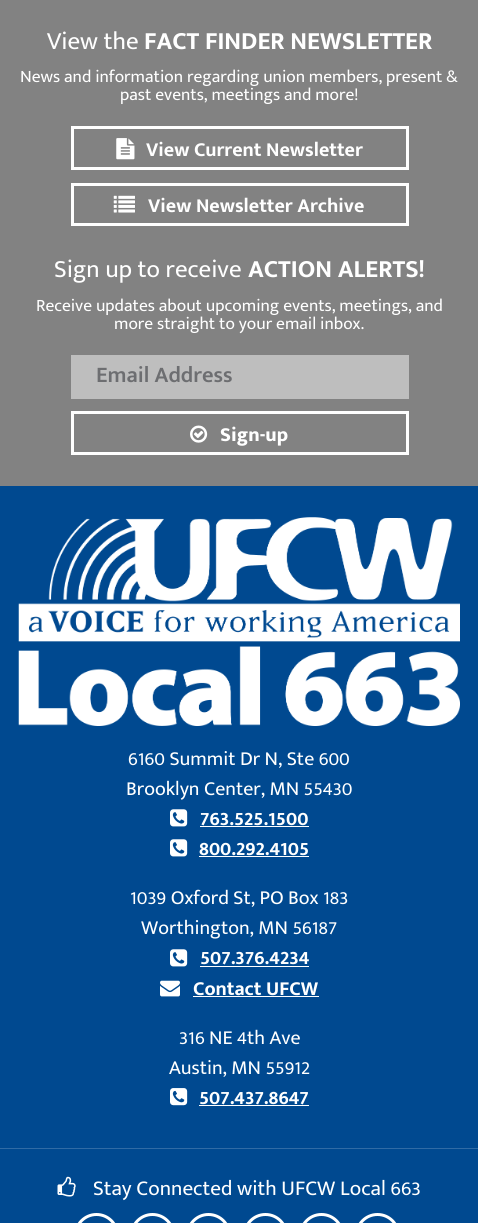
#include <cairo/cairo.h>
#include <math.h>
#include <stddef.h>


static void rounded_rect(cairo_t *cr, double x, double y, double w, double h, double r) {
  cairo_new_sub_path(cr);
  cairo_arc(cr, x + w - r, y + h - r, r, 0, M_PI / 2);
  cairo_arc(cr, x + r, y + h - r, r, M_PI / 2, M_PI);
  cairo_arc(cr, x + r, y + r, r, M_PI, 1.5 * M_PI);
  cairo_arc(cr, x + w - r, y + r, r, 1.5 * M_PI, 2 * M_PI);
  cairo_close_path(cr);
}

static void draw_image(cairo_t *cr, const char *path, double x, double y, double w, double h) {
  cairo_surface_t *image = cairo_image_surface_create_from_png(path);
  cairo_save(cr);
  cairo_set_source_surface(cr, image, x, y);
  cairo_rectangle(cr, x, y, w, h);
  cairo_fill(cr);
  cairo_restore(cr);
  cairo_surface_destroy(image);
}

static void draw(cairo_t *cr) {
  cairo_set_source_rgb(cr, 130 / 255.0, 130 / 255.0, 130 / 255.0);
  cairo_paint(cr);
  cairo_rectangle(cr, 72.5, 127.5, 335, 41);
  cairo_set_source_rgb(cr, 1, 1, 1);
  cairo_set_line_width(cr, 3);
  cairo_stroke(cr);
  draw_image(cr, "images/1.png", 116, 138, 19, 22);
  cairo_rectangle(cr, 72.5, 184.5, 335, 40);
  cairo_stroke(cr);
  draw_image(cr, "images/2.png", 113, 195, 22, 18);
  cairo_set_source_rgb(cr, 190 / 255.0, 190 / 255.0, 190 / 255.0);
  cairo_rectangle(cr, 71, 355, 338, 44);
  cairo_fill(cr);
  cairo_rectangle(cr, 72.5, 412.5, 335, 41);
  cairo_set_source_rgb(cr, 1, 1, 1);
  cairo_stroke(cr);
  draw_image(cr, "images/3.png", 190, 425, 18, 18);
  cairo_set_source_rgb(cr, 0, 73 / 255.0, 144 / 255.0);
  cairo_rectangle(cr, 0, 486, 478, 737);
  cairo_fill(cr);
  draw_image(cr, "images/4.png", 18, 517, 442, 209);
  draw_image(cr, "images/5.png", 170, 809, 18, 18);
  cairo_set_source_rgb(cr, 1, 1, 1);
  cairo_rectangle(cr, 200, 826, 109, 1);
  cairo_fill(cr);
  draw_image(cr, "images/5.png", 170, 839, 18, 18);
  cairo_rectangle(cr, 199, 856, 110, 1);
  cairo_fill(cr);
  draw_image(cr, "images/5.png", 170, 949, 18, 18);
  cairo_rectangle(cr, 200, 966, 109, 1);
  cairo_fill(cr);
  draw_image(cr, "images/6.png", 160, 980, 20, 17);
  cairo_rectangle(cr, 193, 996, 126, 1);
  cairo_fill(cr);
  draw_image(cr, "images/7.png", 170, 1088, 18, 18);
  cairo_rectangle(cr, 199, 1105, 110, 1);
  cairo_fill(cr);
  cairo_set_source_rgb(cr, 48 / 255.0, 107 / 255.0, 165 / 255.0);
  cairo_rectangle(cr, 0, 1148, 478, 1);
  cairo_fill(cr);
  draw_image(cr, "images/8.png", 57, 1176, 19, 21);
  rounded_rect(cr, 75.5, 1214.5, 42, 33, 21);
  cairo_set_source_rgb(cr, 1, 1, 1);
  cairo_stroke(cr);
  rounded_rect(cr, 131.5, 1214.5, 42, 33, 21);
  cairo_stroke(cr);
  rounded_rect(cr, 187.5, 1214.5, 42, 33, 21);
  cairo_stroke(cr);
  rounded_rect(cr, 244.5, 1214.5, 42, 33, 21);
  cairo_stroke(cr);
  rounded_rect(cr, 300.5, 1214.5, 42, 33, 21);
  cairo_stroke(cr);
  rounded_rect(cr, 356.5, 1214.5, 42, 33, 21);
  cairo_stroke(cr);
  cairo_select_font_face(cr, "Mukta Mahee", CAIRO_FONT_SLANT_NORMAL, CAIRO_FONT_WEIGHT_NORMAL);
  cairo_set_font_size(cr, 25);
  cairo_move_to(cr, 47, 49);
  cairo_show_text(cr, "View the");
  cairo_select_font_face(cr, "Mukta Mahee", CAIRO_FONT_SLANT_NORMAL, CAIRO_FONT_WEIGHT_BOLD);
  cairo_move_to(cr, 144, 49);
  cairo_show_text(cr, "FACT FINDER NEWSLETTER");
  cairo_select_font_face(cr, "Mukta Mahee", CAIRO_FONT_SLANT_NORMAL, CAIRO_FONT_WEIGHT_NORMAL);
  cairo_set_font_size(cr, 17.5);
  cairo_move_to(cr, 20, 82);
  cairo_show_text(cr, "News and information regarding union members, present &");
  cairo_move_to(cr, 120, 100);
  cairo_show_text(cr, "past events, meetings and more!");
  cairo_select_font_face(cr, "Mukta Mahee", CAIRO_FONT_SLANT_NORMAL, CAIRO_FONT_WEIGHT_BOLD);
  cairo_set_font_size(cr, 20);
  cairo_move_to(cr, 146, 156);
  cairo_show_text(cr, "View Current Newsletter");
  cairo_move_to(cr, 148, 212);
  cairo_show_text(cr, "View Newsletter Archive");
  cairo_select_font_face(cr, "Mukta Mahee", CAIRO_FONT_SLANT_NORMAL, CAIRO_FONT_WEIGHT_NORMAL);
  cairo_set_font_size(cr, 25);
  cairo_move_to(cr, 54, 277);
  cairo_show_text(cr, "Sign up to receive");
  cairo_select_font_face(cr, "Mukta Mahee", CAIRO_FONT_SLANT_NORMAL, CAIRO_FONT_WEIGHT_BOLD);
  cairo_move_to(cr, 248, 277);
  cairo_show_text(cr, "ACTION ALERTS!");
  cairo_select_font_face(cr, "Mukta Mahee", CAIRO_FONT_SLANT_NORMAL, CAIRO_FONT_WEIGHT_NORMAL);
  cairo_set_font_size(cr, 17.5);
  cairo_move_to(cr, 36, 311);
  cairo_show_text(cr, "Receive updates about upcoming events, meetings, and");
  cairo_move_to(cr, 114, 329);
  cairo_show_text(cr, "more straight to your email inbox.");
  cairo_select_font_face(cr, "Mukta Mahee SemiBold", CAIRO_FONT_SLANT_NORMAL, CAIRO_FONT_WEIGHT_NORMAL);
  cairo_set_font_size(cr, 22.5);
  cairo_set_source_rgb(cr, 109 / 255.0, 110 / 255.0, 113 / 255.0);
  cairo_move_to(cr, 96, 382);
  cairo_show_text(cr, "Email Address");
  cairo_select_font_face(cr, "Mukta Mahee ExtraBold", CAIRO_FONT_SLANT_NORMAL, CAIRO_FONT_WEIGHT_NORMAL);
  cairo_set_font_size(cr, 20);
  cairo_set_source_rgb(cr, 1, 1, 1);
  cairo_move_to(cr, 220, 441);
  cairo_show_text(cr, "Sign-up");
  cairo_select_font_face(cr, "Mukta Mahee", CAIRO_FONT_SLANT_NORMAL, CAIRO_FONT_WEIGHT_NORMAL);
  cairo_move_to(cr, 128, 765);
  cairo_show_text(cr, "6160 Summit Dr N, Ste 600");
  cairo_move_to(cr, 126, 795);
  cairo_show_text(cr, "Brooklyn Center, MN 55430");
  cairo_select_font_face(cr, "Mukta Mahee", CAIRO_FONT_SLANT_NORMAL, CAIRO_FONT_WEIGHT_BOLD);
  cairo_move_to(cr, 200, 825);
  cairo_show_text(cr, "763.525.1500");
  cairo_move_to(cr, 199, 855);
  cairo_show_text(cr, "800.292.4105");
  cairo_select_font_face(cr, "Mukta Mahee", CAIRO_FONT_SLANT_NORMAL, CAIRO_FONT_WEIGHT_NORMAL);
  cairo_move_to(cr, 130, 904);
  cairo_show_text(cr, "1039 Oxford St, PO Box 183");
  cairo_move_to(cr, 141, 934);
  cairo_show_text(cr, "Worthington, MN 56187");
  cairo_select_font_face(cr, "Mukta Mahee", CAIRO_FONT_SLANT_NORMAL, CAIRO_FONT_WEIGHT_BOLD);
  cairo_move_to(cr, 200, 964);
  cairo_show_text(cr, "507.376.4234");
  cairo_move_to(cr, 193, 995);
  cairo_show_text(cr, "Contact UFCW");
  cairo_select_font_face(cr, "Mukta Mahee", CAIRO_FONT_SLANT_NORMAL, CAIRO_FONT_WEIGHT_NORMAL);
  cairo_move_to(cr, 179, 1044);
  cairo_show_text(cr, "316 NE 4th Ave");
  cairo_move_to(cr, 169, 1074);
  cairo_show_text(cr, "Austin, MN 55912");
  cairo_select_font_face(cr, "Mukta Mahee", CAIRO_FONT_SLANT_NORMAL, CAIRO_FONT_WEIGHT_BOLD);
  cairo_move_to(cr, 199, 1104);
  cairo_show_text(cr, "507.437.8647");
  cairo_select_font_face(cr, "Mukta Mahee", CAIRO_FONT_SLANT_NORMAL, CAIRO_FONT_WEIGHT_NORMAL);
  cairo_set_font_size(cr, 21.25);
  cairo_move_to(cr, 93, 1195);
  cairo_show_text(cr, "Stay Connected with UFCW Local 663");
}

int main(void) {
  cairo_surface_t *surface = cairo_image_surface_create(CAIRO_FORMAT_RGB24, 478, 1223);
  cairo_t *cr = cairo_create(surface);
  cairo_font_options_t *options = cairo_font_options_create();
  cairo_font_options_set_hint_metrics(options, CAIRO_HINT_METRICS_OFF);
  cairo_font_options_set_hint_style(options, CAIRO_HINT_STYLE_NONE);
  cairo_set_font_options(cr, options);
  cairo_set_miter_limit(cr, 4);
  draw(cr);
  cairo_surface_write_to_png(surface, "out.png");
  cairo_font_options_destroy(options);
  cairo_destroy(cr);
  cairo_surface_destroy(surface);
  return 0;
}
